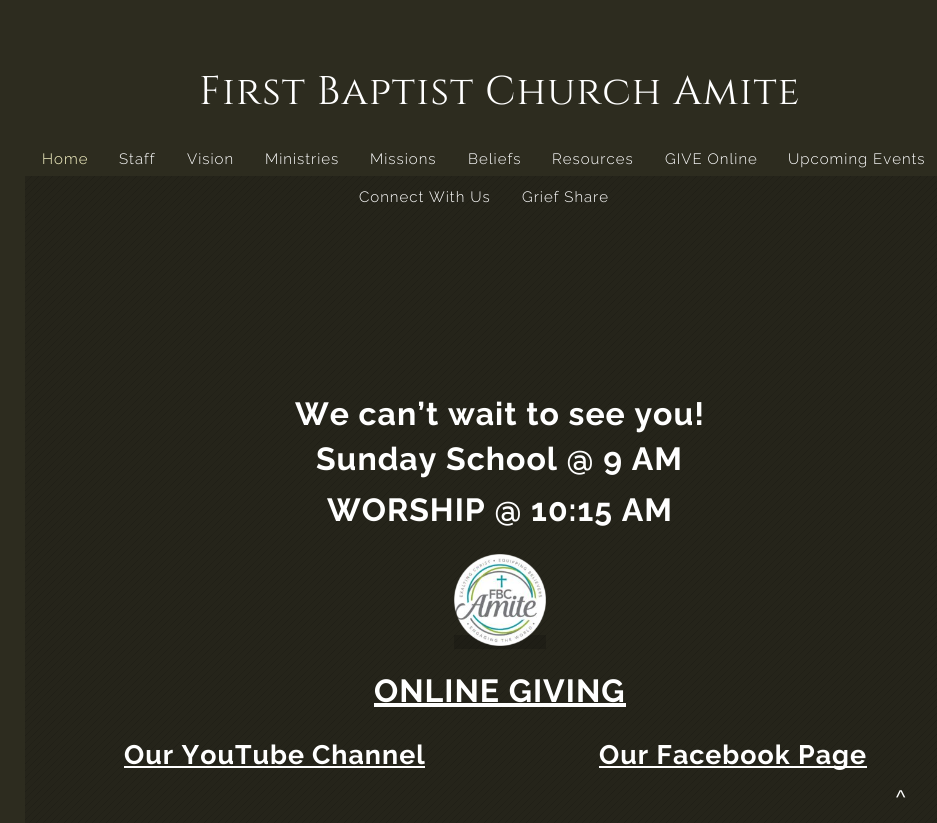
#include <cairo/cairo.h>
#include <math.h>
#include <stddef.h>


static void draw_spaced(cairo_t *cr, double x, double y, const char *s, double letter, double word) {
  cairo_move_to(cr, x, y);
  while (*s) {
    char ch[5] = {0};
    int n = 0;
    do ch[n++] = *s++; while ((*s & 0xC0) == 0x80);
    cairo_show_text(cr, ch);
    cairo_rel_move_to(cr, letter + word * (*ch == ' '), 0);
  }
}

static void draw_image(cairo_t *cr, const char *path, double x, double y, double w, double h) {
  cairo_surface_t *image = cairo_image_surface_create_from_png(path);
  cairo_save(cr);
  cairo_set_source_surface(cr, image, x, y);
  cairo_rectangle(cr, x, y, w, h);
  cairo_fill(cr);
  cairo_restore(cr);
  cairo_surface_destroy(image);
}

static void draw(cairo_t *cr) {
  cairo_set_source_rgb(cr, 45 / 255.0, 44 / 255.0, 31 / 255.0);
  cairo_paint(cr);
  cairo_set_source_rgb(cr, 37 / 255.0, 36 / 255.0, 26 / 255.0);
  cairo_rectangle(cr, 25, 176, 912, 647);
  cairo_fill(cr);
  draw_image(cr, "images/1.png", 25, 176, 912, 647);
  cairo_set_source_rgba(cr, 3 / 255.0, 0, 3 / 255.0, 0.17);
  cairo_rectangle(cr, 454, 635, 92, 14);
  cairo_fill(cr);
  draw_image(cr, "images/2.png", 454, 554, 92, 92);
  cairo_set_source_rgb(cr, 1, 1, 1);
  cairo_rectangle(cr, 374, 703, 252, 4);
  cairo_fill(cr);
  cairo_rectangle(cr, 124, 766, 301, 2);
  cairo_fill(cr);
  cairo_rectangle(cr, 599, 766, 268, 2);
  cairo_fill(cr);
  cairo_select_font_face(cr, "Cinzel", CAIRO_FONT_SLANT_NORMAL, CAIRO_FONT_WEIGHT_NORMAL);
  cairo_set_font_size(cr, 40);
  draw_spaced(cr, 199, 104, "First Baptist Church Amite", 1, 0);
  cairo_select_font_face(cr, "Raleway Light", CAIRO_FONT_SLANT_NORMAL, CAIRO_FONT_WEIGHT_NORMAL);
  cairo_set_font_size(cr, 15);
  cairo_set_source_rgb(cr, 1, 252 / 255.0, 204 / 255.0);
  draw_spaced(cr, 42, 164, "Home", 1, 0);
  cairo_set_source_rgb(cr, 1, 1, 1);
  draw_spaced(cr, 119, 164, "Staff", 1, 0);
  draw_spaced(cr, 187, 164, "Vision", 1, 0);
  draw_spaced(cr, 265, 164, "Ministries", 1, 0);
  draw_spaced(cr, 370, 164, "Missions", 1, 0);
  draw_spaced(cr, 468, 164, "Beliefs", 1, 0);
  draw_spaced(cr, 552, 164, "Resources", 1, 0);
  draw_spaced(cr, 665, 164, "GIVE Online", 1, 0);
  draw_spaced(cr, 788, 164, "Upcoming Events", 1, 0);
  draw_spaced(cr, 359, 202, "Connect With Us", 1, 0);
  draw_spaced(cr, 522, 202, "Grief Share", 1, 0);
  cairo_select_font_face(cr, "Raleway", CAIRO_FONT_SLANT_NORMAL, CAIRO_FONT_WEIGHT_BOLD);
  cairo_set_font_size(cr, 32);
  draw_spaced(cr, 295, 425, "We can’t wait to see you!", 1, 0);
  draw_spaced(cr, 316, 470, "Sunday School @ 9 AM", 1, 0);
  draw_spaced(cr, 327, 521, "WORSHIP @ 10:15 AM", 1, 0);
  draw_spaced(cr, 374, 702, "ONLINE GIVING", 1, 0);
  cairo_set_font_size(cr, 26.75);
  draw_spaced(cr, 124, 764, "Our YouTube", 1, 0);
  draw_spaced(cr, 312, 764, "Channel", 1, 0);
  draw_spaced(cr, 599, 764, "Our Facebook Page", 1, 0);
  cairo_select_font_face(cr, "Liberation Sans", CAIRO_FONT_SLANT_NORMAL, CAIRO_FONT_WEIGHT_NORMAL);
  cairo_set_font_size(cr, 20);
  draw_spaced(cr, 896, 804, "^", 1, 0);
}

int main(void) {
  cairo_surface_t *surface = cairo_image_surface_create(CAIRO_FORMAT_RGB24, 937, 823);
  cairo_t *cr = cairo_create(surface);
  cairo_font_options_t *options = cairo_font_options_create();
  cairo_font_options_set_hint_metrics(options, CAIRO_HINT_METRICS_OFF);
  cairo_font_options_set_hint_style(options, CAIRO_HINT_STYLE_NONE);
  cairo_set_font_options(cr, options);
  cairo_set_miter_limit(cr, 4);
  draw(cr);
  cairo_surface_write_to_png(surface, "out.png");
  cairo_font_options_destroy(options);
  cairo_destroy(cr);
  cairo_surface_destroy(surface);
  return 0;
}
